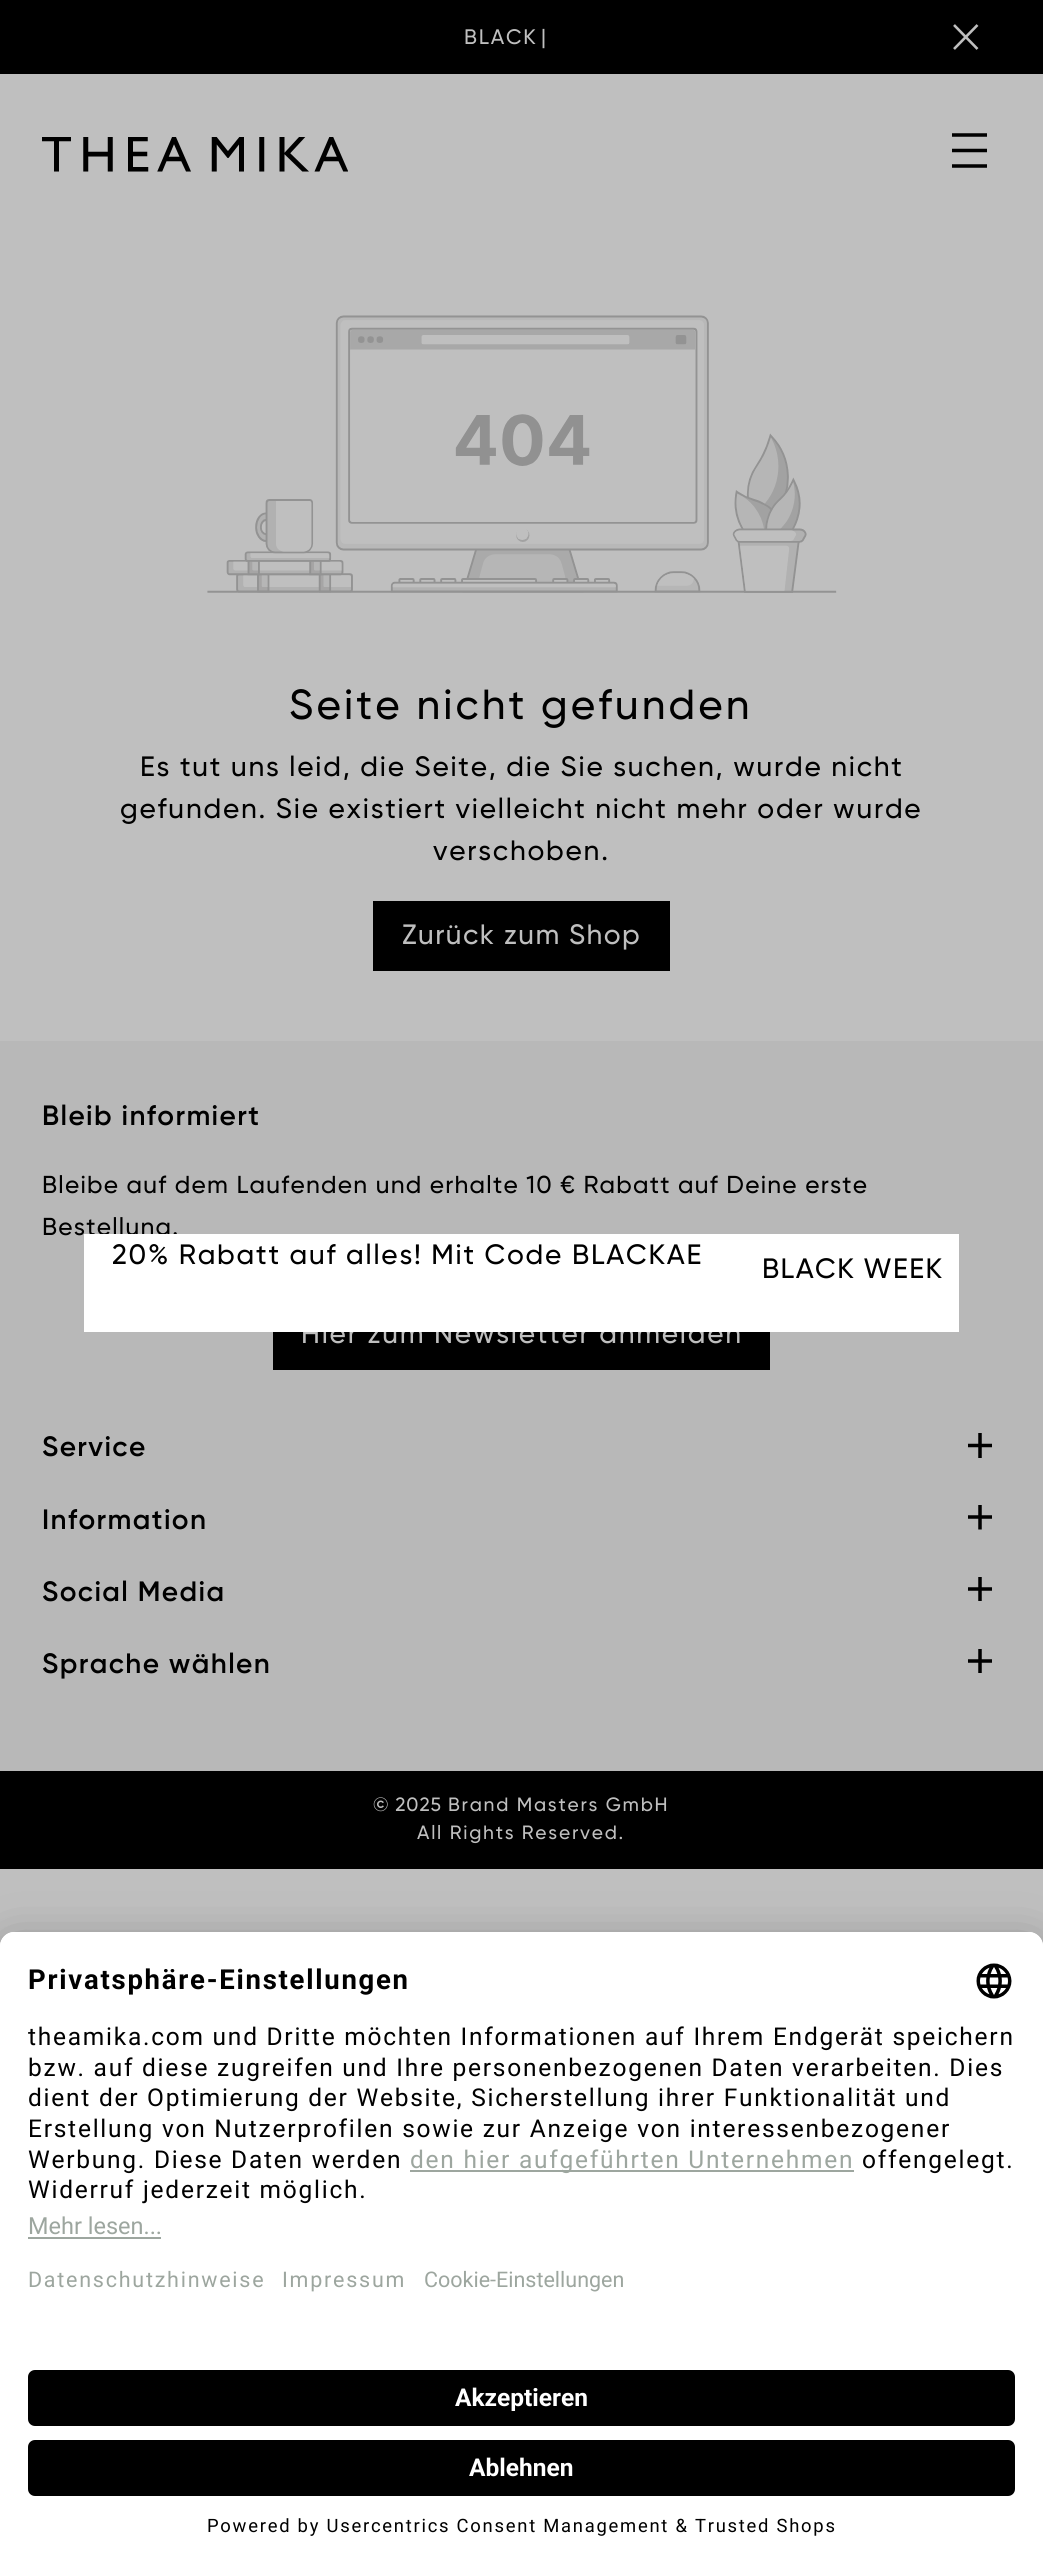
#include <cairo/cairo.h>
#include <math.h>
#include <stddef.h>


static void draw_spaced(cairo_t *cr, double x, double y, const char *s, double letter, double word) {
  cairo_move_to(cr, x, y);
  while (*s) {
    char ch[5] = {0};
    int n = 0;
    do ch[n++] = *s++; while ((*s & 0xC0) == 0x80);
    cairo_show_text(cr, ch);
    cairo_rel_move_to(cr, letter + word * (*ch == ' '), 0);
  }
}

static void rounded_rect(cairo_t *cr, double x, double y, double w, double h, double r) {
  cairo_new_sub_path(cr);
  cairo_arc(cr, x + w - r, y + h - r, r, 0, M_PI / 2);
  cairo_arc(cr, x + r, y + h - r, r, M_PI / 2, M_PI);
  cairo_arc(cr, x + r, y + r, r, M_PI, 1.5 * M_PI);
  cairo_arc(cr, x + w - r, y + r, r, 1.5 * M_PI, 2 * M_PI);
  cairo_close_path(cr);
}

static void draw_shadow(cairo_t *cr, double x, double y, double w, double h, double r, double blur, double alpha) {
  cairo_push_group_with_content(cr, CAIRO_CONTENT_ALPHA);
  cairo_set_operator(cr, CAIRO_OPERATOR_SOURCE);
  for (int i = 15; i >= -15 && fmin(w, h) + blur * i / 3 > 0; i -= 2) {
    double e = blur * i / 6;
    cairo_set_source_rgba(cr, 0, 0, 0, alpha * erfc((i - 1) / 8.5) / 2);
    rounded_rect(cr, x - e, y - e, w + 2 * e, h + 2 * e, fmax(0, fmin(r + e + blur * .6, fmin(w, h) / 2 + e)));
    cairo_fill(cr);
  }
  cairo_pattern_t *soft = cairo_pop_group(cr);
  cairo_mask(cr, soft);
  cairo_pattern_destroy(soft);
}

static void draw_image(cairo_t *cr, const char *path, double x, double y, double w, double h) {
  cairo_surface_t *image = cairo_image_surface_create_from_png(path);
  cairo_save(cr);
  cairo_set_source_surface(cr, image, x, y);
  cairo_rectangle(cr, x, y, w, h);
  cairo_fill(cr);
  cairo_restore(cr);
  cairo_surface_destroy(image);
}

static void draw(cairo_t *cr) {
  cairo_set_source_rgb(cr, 191 / 255.0, 191 / 255.0, 191 / 255.0);
  cairo_paint(cr);
  cairo_set_source_rgb(cr, 0, 0, 0);
  cairo_rectangle(cr, 0, 0, 1043, 74);
  cairo_fill(cr);
  cairo_new_path(cr);
  cairo_move_to(cr, 954, 25);
  cairo_line_to(cr, 977.5, 49);
  cairo_move_to(cr, 977.5, 25);
  cairo_line_to(cr, 954, 49);
  cairo_set_source_rgb(cr, 191 / 255.0, 191 / 255.0, 191 / 255.0);
  cairo_set_line_width(cr, 2.6);
  cairo_stroke(cr);
  draw_image(cr, "images/1.png", 42, 137, 306, 35);
  cairo_new_path(cr);
  cairo_move_to(cr, 952, 150.5);
  cairo_line_to(cr, 987, 150.5);
  cairo_move_to(cr, 952, 135);
  cairo_line_to(cr, 987, 135);
  cairo_move_to(cr, 952, 166);
  cairo_line_to(cr, 987, 166);
  cairo_set_source_rgb(cr, 0, 0, 0);
  cairo_set_line_width(cr, 3.5);
  cairo_stroke(cr);
  draw_image(cr, "images/2.png", 207, 315, 630, 278);
  cairo_rectangle(cr, 373, 901, 297, 70);
  cairo_fill(cr);
  cairo_set_source_rgb(cr, 184 / 255.0, 184 / 255.0, 184 / 255.0);
  cairo_rectangle(cr, 0, 1041, 1043, 730);
  cairo_fill(cr);
  cairo_set_source_rgb(cr, 0, 0, 0);
  cairo_rectangle(cr, 273, 1332, 497, 38);
  cairo_fill(cr);
  cairo_new_path(cr);
  cairo_move_to(cr, 968, 1445.5);
  cairo_line_to(cr, 992, 1445.5);
  cairo_move_to(cr, 980, 1433);
  cairo_line_to(cr, 980, 1458);
  cairo_stroke(cr);
  cairo_new_path(cr);
  cairo_move_to(cr, 968, 1517);
  cairo_line_to(cr, 992, 1517);
  cairo_move_to(cr, 980, 1505);
  cairo_line_to(cr, 980, 1529.5);
  cairo_stroke(cr);
  cairo_new_path(cr);
  cairo_move_to(cr, 968, 1589);
  cairo_line_to(cr, 992, 1589);
  cairo_move_to(cr, 980, 1577);
  cairo_line_to(cr, 980, 1601);
  cairo_stroke(cr);
  cairo_save(cr);
  cairo_rectangle(cr, 968, 1649, 33, 35);
  cairo_clip(cr);
  cairo_new_path(cr);
  cairo_move_to(cr, 968, 1661);
  cairo_line_to(cr, 992, 1661);
  cairo_move_to(cr, 980, 1648.5);
  cairo_line_to(cr, 980, 1673);
  cairo_stroke(cr);
  cairo_restore(cr);
  cairo_rectangle(cr, 0, 1771, 1043, 98);
  cairo_fill(cr);
  cairo_set_source_rgb(cr, 0, 0, 0);
  draw_shadow(cr, 0, 1967, 1043, 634, 14, 24.5, 0.3);
  draw_shadow(cr, 0, 1941, 1043, 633, 14, 23, 0.22);
  cairo_set_source_rgb(cr, 1, 1, 1);
  cairo_new_path(cr);
  cairo_move_to(cr, 14, 1932);
  cairo_line_to(cr, 1029, 1932);
  cairo_curve_to(cr, 1036.5, 1932, 1043, 1938.5, 1043, 1946);
  cairo_line_to(cr, 1043, 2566);
  cairo_line_to(cr, 0, 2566);
  cairo_line_to(cr, 0, 1946);
  cairo_curve_to(cr, 0, 1938.5, 6.5, 1932, 14, 1932);
  cairo_close_path(cr);
  cairo_fill(cr);
  cairo_new_path(cr);
  cairo_move_to(cr, 14, 1932);
  cairo_line_to(cr, 1029, 1932);
  cairo_curve_to(cr, 1036.5, 1932, 1043, 1938.5, 1043, 1946);
  cairo_line_to(cr, 1043, 2349);
  cairo_line_to(cr, 0, 2349);
  cairo_line_to(cr, 0, 1946);
  cairo_curve_to(cr, 0, 1938.5, 6.5, 1932, 14, 1932);
  cairo_close_path(cr);
  cairo_fill(cr);
  draw_image(cr, "images/3.png", 976, 1963, 36, 36);
  cairo_set_source_rgb(cr, 157 / 255.0, 166 / 255.0, 159 / 255.0);
  cairo_rectangle(cr, 410, 2170, 444, 2);
  cairo_fill(cr);
  cairo_rectangle(cr, 28, 2237, 133, 2);
  cairo_fill(cr);
  cairo_set_source_rgb(cr, 0, 0, 0);
  rounded_rect(cr, 28, 2370, 987, 56, 7);
  cairo_fill(cr);
  rounded_rect(cr, 28, 2440, 987, 56, 7);
  cairo_fill(cr);
  cairo_select_font_face(cr, "Gilroy Medium", CAIRO_FONT_SLANT_NORMAL, CAIRO_FONT_WEIGHT_NORMAL);
  cairo_set_font_size(cr, 21);
  cairo_set_source_rgb(cr, 191 / 255.0, 191 / 255.0, 191 / 255.0);
  draw_spaced(cr, 464, 44, "BLACK", 1.75, 0);
  draw_spaced(cr, 541, 44, "|", 1.75, 0);
  cairo_set_font_size(cr, 42);
  cairo_set_source_rgb(cr, 0, 0, 0);
  draw_spaced(cr, 289, 719, "Seite nicht gefunden", 3.1, 0);
  cairo_set_font_size(cr, 28);
  draw_spaced(cr, 140, 776, "Es tut uns leid, die Seite, die Sie suchen, wurde nicht", 1.75, 0);
  draw_spaced(cr, 120, 818, "gefunden. Sie existiert vielleicht nicht mehr oder wurde", 1.75, 0);
  draw_spaced(cr, 433, 860, "verschoben.", 1.75, 0);
  cairo_set_source_rgb(cr, 191 / 255.0, 191 / 255.0, 191 / 255.0);
  draw_spaced(cr, 402, 944, "Zurück zum Shop", 1.4, 0);
  cairo_select_font_face(cr, "Gilroy SemiBold", CAIRO_FONT_SLANT_NORMAL, CAIRO_FONT_WEIGHT_NORMAL);
  cairo_set_source_rgb(cr, 0, 0, 0);
  draw_spaced(cr, 42, 1125, "Bleib informiert", 1.4, 0);
  cairo_select_font_face(cr, "Gilroy Medium", CAIRO_FONT_SLANT_NORMAL, CAIRO_FONT_WEIGHT_NORMAL);
  cairo_set_font_size(cr, 24.5);
  draw_spaced(cr, 42, 1193, "Bleibe auf dem Laufenden und erhalte 10 € Rabatt auf Deine erste", 1.22, 0);
  draw_spaced(cr, 42, 1235, "Bestellung.", 1.22, 0);
  cairo_set_font_size(cr, 28);
  cairo_set_source_rgb(cr, 191 / 255.0, 191 / 255.0, 191 / 255.0);
  draw_spaced(cr, 301, 1343, "Hier zum Newsletter anmelden", 1.75, 0);
  cairo_select_font_face(cr, "Gilroy SemiBold", CAIRO_FONT_SLANT_NORMAL, CAIRO_FONT_WEIGHT_NORMAL);
  cairo_set_source_rgb(cr, 0, 0, 0);
  draw_spaced(cr, 42, 1456, "Service", 1.4, 0);
  draw_spaced(cr, 42, 1529, "Information", 1.4, 0);
  draw_spaced(cr, 42, 1601, "Social Media", 1.4, 0);
  draw_spaced(cr, 42, 1673, "Sprache wählen", 1.4, 0);
  cairo_select_font_face(cr, "Gilroy Medium", CAIRO_FONT_SLANT_NORMAL, CAIRO_FONT_WEIGHT_NORMAL);
  cairo_set_font_size(cr, 19.25);
  cairo_set_source_rgb(cr, 191 / 255.0, 191 / 255.0, 191 / 255.0);
  draw_spaced(cr, 373, 1811, "© 2025", 1, 0);
  draw_spaced(cr, 448, 1811, "Brand Masters GmbH", 1.75, 0);
  draw_spaced(cr, 417, 1839, "All Rights Reserved.", 1.75, 0);
  cairo_set_source_rgb(cr, 1, 1, 1);
  cairo_rectangle(cr, 84, 1234, 875, 98);
  cairo_fill(cr);
  cairo_set_font_size(cr, 28);
  cairo_set_source_rgb(cr, 0, 0, 0);
  draw_spaced(cr, 112, 1264, "20% Rabatt auf alles! Mit Code BLACKAE", 1.75, 0);
  draw_spaced(cr, 762, 1278, "BLACK WEEK", 1.4, 0);
  cairo_select_font_face(cr, "Roboto", CAIRO_FONT_SLANT_NORMAL, CAIRO_FONT_WEIGHT_BOLD);
  cairo_set_font_size(cr, 27.5);
  draw_spaced(cr, 28, 1989, "Privatsphäre-Einstellungen", 1.75, 0);
  cairo_select_font_face(cr, "Roboto", CAIRO_FONT_SLANT_NORMAL, CAIRO_FONT_WEIGHT_NORMAL);
  cairo_set_font_size(cr, 24.5);
  draw_spaced(cr, 28, 2045, "theamika.com und Dritte möchten Informationen auf Ihrem Endgerät speichern", 1.75, 0);
  draw_spaced(cr, 28, 2076, "bzw. auf diese zugreifen und Ihre personenbezogenen Daten verarbeiten. Dies", 1.75, 0);
  draw_spaced(cr, 28, 2106, "dient der Optimierung der Website, Sicherstellung ihrer Funktionalität und", 1.75, 0);
  draw_spaced(cr, 28, 2137, "Erstellung von Nutzerprofilen sowie zur Anzeige von interessenbezogener", 1.75, 0);
  draw_spaced(cr, 28, 2168, "Werbung. Diese Daten werden", 1.75, 0);
  cairo_set_source_rgb(cr, 157 / 255.0, 166 / 255.0, 159 / 255.0);
  draw_spaced(cr, 410, 2168, "den hier aufgeführten Unternehmen", 1.75, 0);
  cairo_set_source_rgb(cr, 0, 0, 0);
  draw_spaced(cr, 862, 2168, "offengelegt.", 1.75, 0);
  draw_spaced(cr, 28, 2198, "Widerruf jederzeit möglich.", 1.75, 0);
  cairo_set_font_size(cr, 23.5);
  cairo_set_source_rgb(cr, 157 / 255.0, 166 / 255.0, 159 / 255.0);
  cairo_move_to(cr, 28, 2234);
  cairo_show_text(cr, "Mehr lesen...");
  cairo_set_font_size(cr, 21.5);
  draw_spaced(cr, 28, 2287, "Datenschutzhinweise", 1.75, 0);
  draw_spaced(cr, 282, 2287, "Impressum", 1.75, 0);
  cairo_move_to(cr, 424, 2287);
  cairo_show_text(cr, "Cookie-Einstellungen");
  cairo_select_font_face(cr, "Roboto", CAIRO_FONT_SLANT_NORMAL, CAIRO_FONT_WEIGHT_BOLD);
  cairo_set_font_size(cr, 24.5);
  cairo_set_source_rgb(cr, 1, 1, 1);
  cairo_move_to(cr, 455, 2406);
  cairo_show_text(cr, "Akzeptieren");
  cairo_move_to(cr, 469, 2476);
  cairo_show_text(cr, "Ablehnen");
  cairo_select_font_face(cr, "Roboto", CAIRO_FONT_SLANT_NORMAL, CAIRO_FONT_WEIGHT_NORMAL);
  cairo_set_font_size(cr, 18.4);
  cairo_set_source_rgb(cr, 0, 0, 0);
  draw_spaced(cr, 207, 2532, "Powered by Usercentrics Consent Management & Trusted Shops", 1.75, 0);
}

int main(void) {
  cairo_surface_t *surface = cairo_image_surface_create(CAIRO_FORMAT_RGB24, 1043, 2564);
  cairo_t *cr = cairo_create(surface);
  cairo_font_options_t *options = cairo_font_options_create();
  cairo_font_options_set_hint_metrics(options, CAIRO_HINT_METRICS_OFF);
  cairo_font_options_set_hint_style(options, CAIRO_HINT_STYLE_NONE);
  cairo_set_font_options(cr, options);
  cairo_set_miter_limit(cr, 4);
  draw(cr);
  cairo_surface_write_to_png(surface, "out.png");
  cairo_font_options_destroy(options);
  cairo_destroy(cr);
  cairo_surface_destroy(surface);
  return 0;
}
